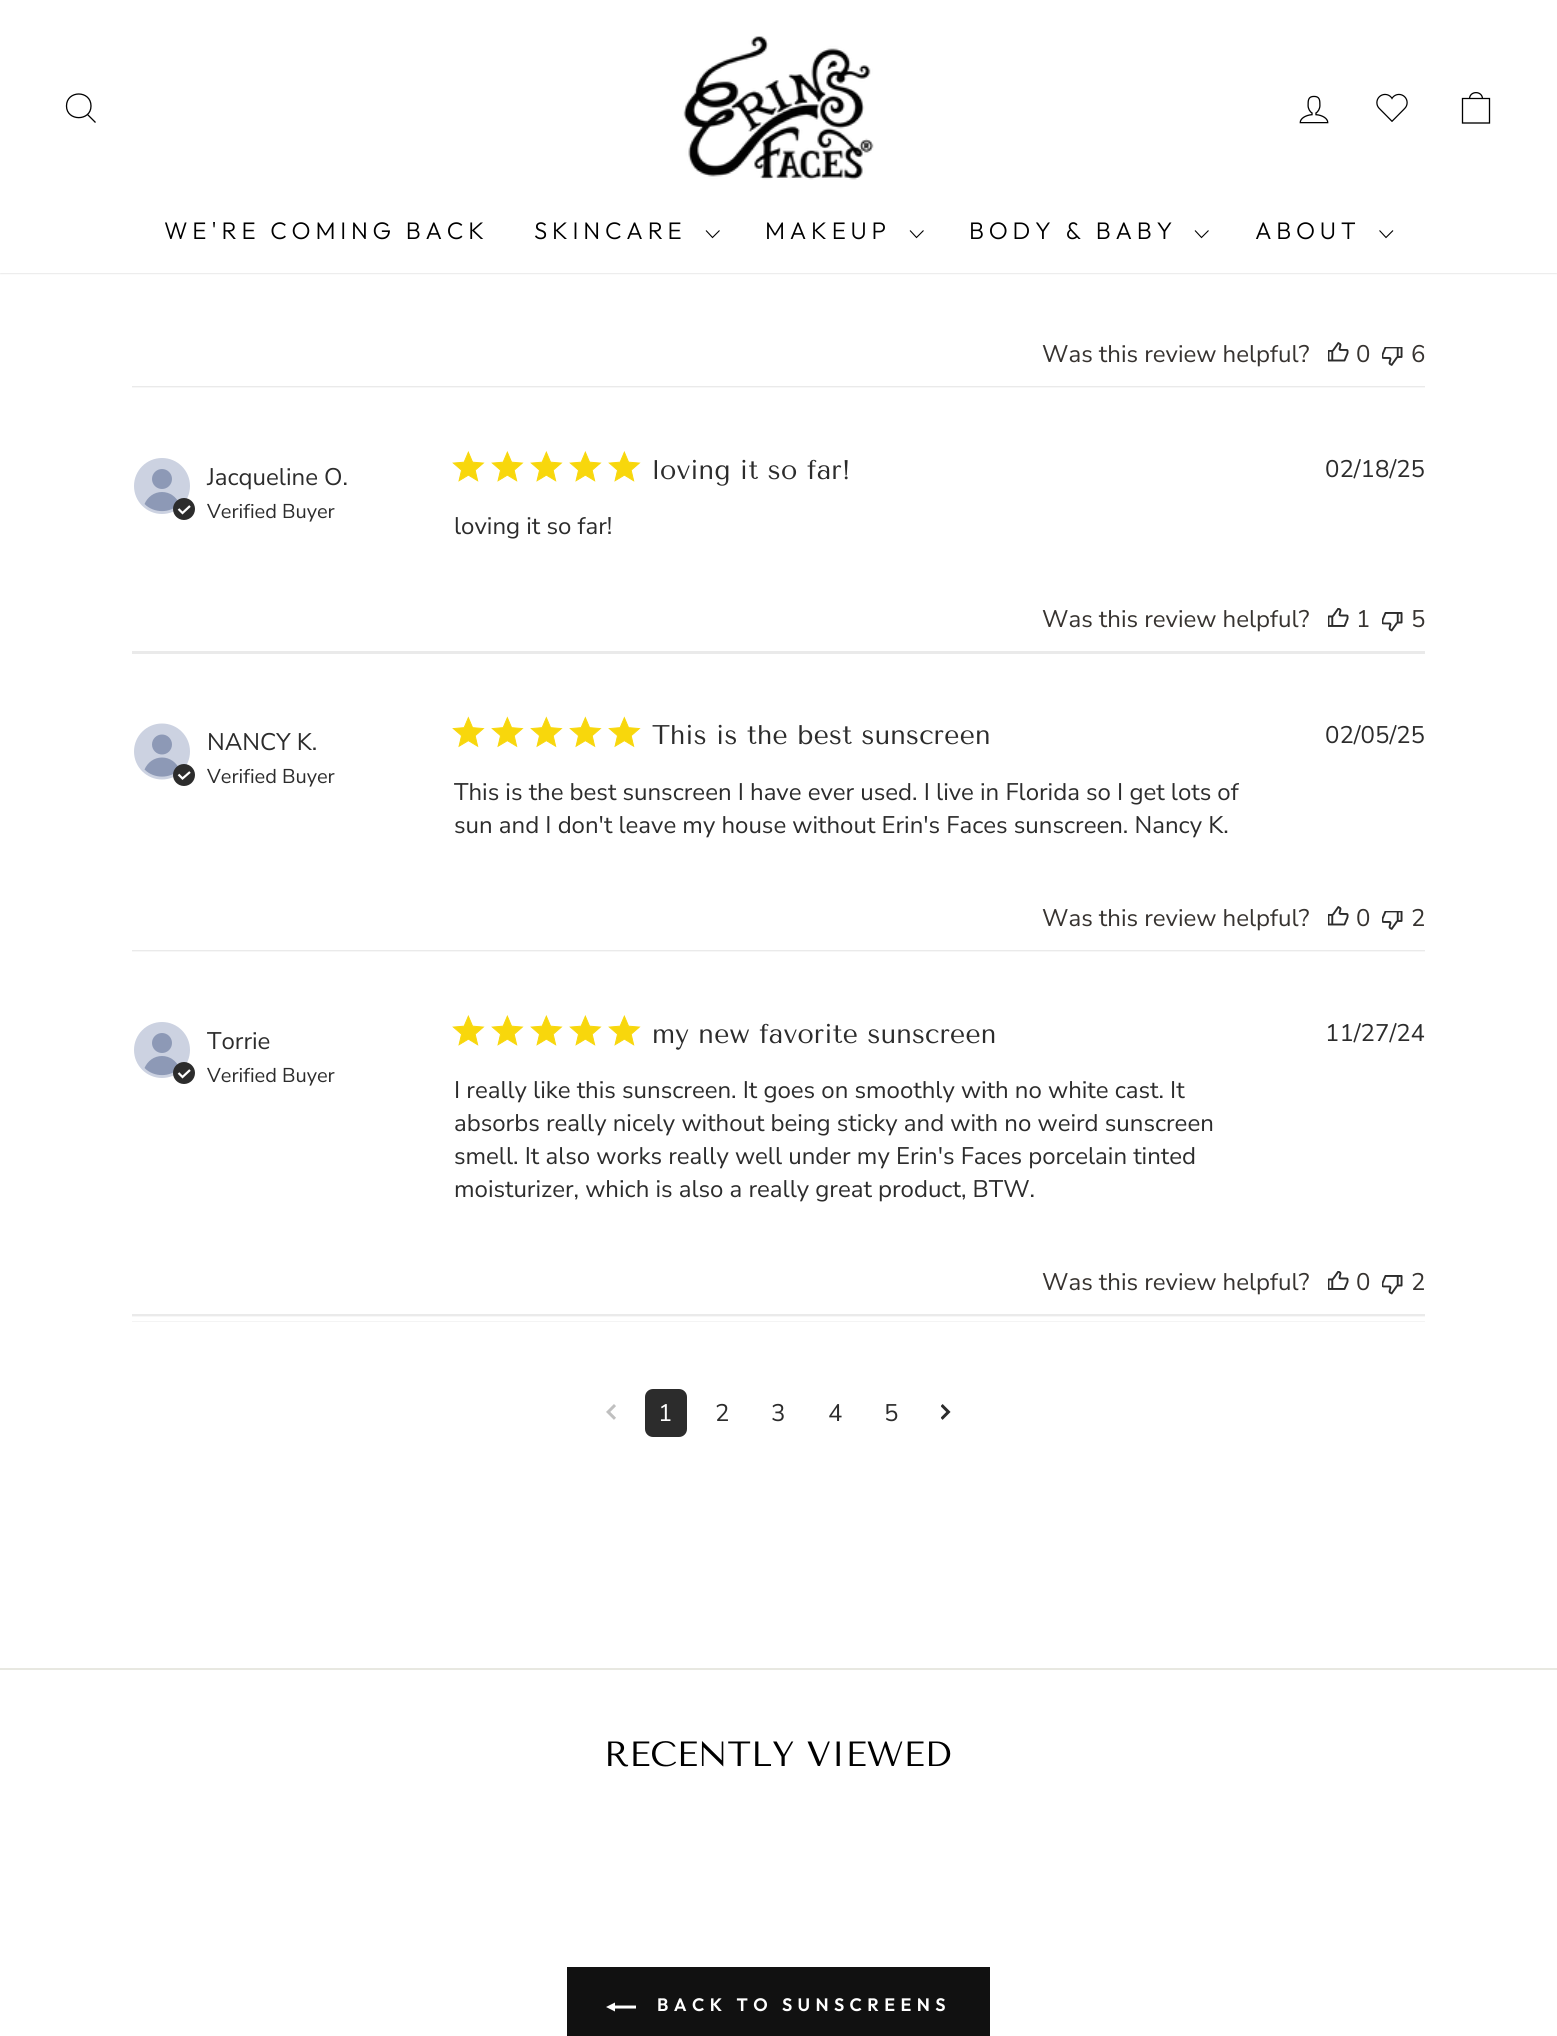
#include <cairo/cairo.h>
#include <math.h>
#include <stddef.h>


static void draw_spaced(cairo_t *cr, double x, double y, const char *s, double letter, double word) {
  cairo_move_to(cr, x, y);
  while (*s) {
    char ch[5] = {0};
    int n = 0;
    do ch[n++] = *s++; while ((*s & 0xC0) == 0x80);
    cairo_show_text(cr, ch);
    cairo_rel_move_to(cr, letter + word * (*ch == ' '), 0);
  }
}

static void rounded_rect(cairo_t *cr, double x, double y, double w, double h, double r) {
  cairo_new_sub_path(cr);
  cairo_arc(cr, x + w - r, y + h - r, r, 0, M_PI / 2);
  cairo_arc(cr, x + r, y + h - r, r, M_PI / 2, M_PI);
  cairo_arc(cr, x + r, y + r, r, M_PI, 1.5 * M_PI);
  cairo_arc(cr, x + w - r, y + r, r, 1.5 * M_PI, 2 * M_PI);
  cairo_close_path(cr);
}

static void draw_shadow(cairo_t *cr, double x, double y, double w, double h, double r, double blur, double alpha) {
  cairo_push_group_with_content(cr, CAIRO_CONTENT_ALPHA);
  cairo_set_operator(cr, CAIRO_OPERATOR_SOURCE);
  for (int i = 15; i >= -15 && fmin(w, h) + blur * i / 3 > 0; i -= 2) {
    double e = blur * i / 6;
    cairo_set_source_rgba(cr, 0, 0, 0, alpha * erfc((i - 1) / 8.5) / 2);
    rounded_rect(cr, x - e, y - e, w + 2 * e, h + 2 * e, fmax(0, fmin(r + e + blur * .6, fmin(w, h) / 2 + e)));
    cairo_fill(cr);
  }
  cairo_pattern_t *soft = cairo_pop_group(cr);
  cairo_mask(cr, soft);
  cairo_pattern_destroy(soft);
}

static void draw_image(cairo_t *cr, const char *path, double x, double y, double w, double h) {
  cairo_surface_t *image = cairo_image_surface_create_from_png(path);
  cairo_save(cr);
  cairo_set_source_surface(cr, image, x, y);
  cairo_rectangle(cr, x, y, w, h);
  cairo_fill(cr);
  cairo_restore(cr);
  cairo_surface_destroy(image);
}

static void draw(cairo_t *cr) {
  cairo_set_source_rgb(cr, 1, 1, 1);
  cairo_paint(cr);
  cairo_set_source_rgb(cr, 0, 0, 0);
  draw_shadow(cr, 0, 0, 1557, 273, 0, 1, 0.2);
  cairo_set_source_rgb(cr, 1, 1, 1);
  cairo_rectangle(cr, 0, 0, 1557, 273);
  cairo_fill(cr);
  cairo_new_path(cr);
  cairo_move_to(cr, 91, 106);
  cairo_curve_to(cr, 91, 121.5, 66.5, 121.5, 66.5, 106);
  cairo_curve_to(cr, 66.5, 90, 91, 90, 91, 106);
  cairo_close_path(cr);
  cairo_move_to(cr, 95.5, 122.5);
  cairo_line_to(cr, 87.5, 114.5);
  cairo_set_source_rgb(cr, 0, 0, 0);
  cairo_set_line_width(cr, 1.3);
  cairo_stroke(cr);
  draw_image(cr, "images/1.png", 683, 36, 191, 144);
  draw_image(cr, "images/2.png", 1299, 95, 30, 29);
  draw_image(cr, "images/3.png", 1376, 93, 32, 29);
  cairo_new_path(cr);
  cairo_move_to(cr, 1462.5, 98.5);
  cairo_line_to(cr, 1489.5, 98.5);
  cairo_line_to(cr, 1489.5, 123);
  cairo_line_to(cr, 1462.5, 123);
  cairo_close_path(cr);
  cairo_move_to(cr, 1469.5, 99);
  cairo_curve_to(cr, 1469.5, 90.5, 1482.5, 90.5, 1482.5, 99);
  cairo_stroke(cr);
  cairo_new_path(cr);
  cairo_move_to(cr, 706, 230.5);
  cairo_line_to(cr, 712.5, 237.5);
  cairo_line_to(cr, 719.5, 230.5);
  cairo_set_line_width(cr, 1.1);
  cairo_stroke(cr);
  cairo_new_path(cr);
  cairo_move_to(cr, 910, 230.5);
  cairo_line_to(cr, 916.5, 237.5);
  cairo_line_to(cr, 923.5, 230.5);
  cairo_stroke(cr);
  cairo_new_path(cr);
  cairo_move_to(cr, 1195, 230.5);
  cairo_line_to(cr, 1201.5, 237.5);
  cairo_line_to(cr, 1208.5, 230.5);
  cairo_stroke(cr);
  cairo_new_path(cr);
  cairo_move_to(cr, 1379.5, 230.5);
  cairo_line_to(cr, 1386, 237.5);
  cairo_line_to(cr, 1393, 230.5);
  cairo_stroke(cr);
  draw_image(cr, "images/4.png", 1328, 342, 21, 20);
  draw_image(cr, "images/5.png", 1382, 347, 21, 19);
  draw_image(cr, "images/6.png", 132, 386, 1293, 2);
  cairo_set_source_rgb(cr, 204 / 255.0, 210 / 255.0, 225 / 255.0);
  cairo_arc(cr, 162, 486, 28, 0, 2 * M_PI);
  cairo_fill(cr);
  cairo_set_source_rgb(cr, 141 / 255.0, 153 / 255.0, 182 / 255.0);
  cairo_arc(cr, 162, 479, 10, 0, 2 * M_PI);
  cairo_fill(cr);
  cairo_new_path(cr);
  cairo_move_to(cr, 162, 492);
  cairo_curve_to(cr, 170, 492, 176.5, 497, 179.5, 504);
  cairo_curve_to(cr, 170, 513.5, 154, 513.5, 144.5, 504);
  cairo_curve_to(cr, 147.5, 497, 154, 492, 162, 492);
  cairo_close_path(cr);
  cairo_fill(cr);
  cairo_set_source_rgb(cr, 44 / 255.0, 44 / 255.0, 44 / 255.0);
  cairo_arc(cr, 184, 509, 11, 0, 2 * M_PI);
  cairo_fill(cr);
  cairo_new_path(cr);
  cairo_move_to(cr, 178.5, 509);
  cairo_line_to(cr, 182.5, 513);
  cairo_line_to(cr, 190, 506);
  cairo_set_source_rgb(cr, 1, 1, 1);
  cairo_set_line_width(cr, 2.2);
  cairo_stroke(cr);
  draw_image(cr, "images/7.png", 452, 451, 33, 31);
  draw_image(cr, "images/7.png", 491, 451, 33, 31);
  draw_image(cr, "images/7.png", 530, 451, 33, 31);
  draw_image(cr, "images/7.png", 569, 451, 33, 31);
  draw_image(cr, "images/7.png", 608, 451, 33, 31);
  draw_image(cr, "images/8.png", 1328, 608, 21, 19);
  draw_image(cr, "images/9.png", 1382, 612, 21, 20);
  cairo_set_source_rgb(cr, 234 / 255.0, 234 / 255.0, 234 / 255.0);
  cairo_rectangle(cr, 132, 651, 1293, 3);
  cairo_fill(cr);
  cairo_set_source_rgb(cr, 204 / 255.0, 210 / 255.0, 225 / 255.0);
  cairo_arc(cr, 162, 751.5, 28, 0, 2 * M_PI);
  cairo_fill(cr);
  cairo_set_source_rgb(cr, 141 / 255.0, 153 / 255.0, 182 / 255.0);
  cairo_arc(cr, 162, 744.5, 10, 0, 2 * M_PI);
  cairo_fill(cr);
  cairo_new_path(cr);
  cairo_move_to(cr, 162, 757.5);
  cairo_curve_to(cr, 170, 757.5, 176.5, 762.5, 179.5, 769.5);
  cairo_curve_to(cr, 170, 779, 154, 779, 144.5, 769.5);
  cairo_curve_to(cr, 147.5, 762.5, 154, 757.5, 162, 757.5);
  cairo_close_path(cr);
  cairo_fill(cr);
  cairo_set_source_rgb(cr, 44 / 255.0, 44 / 255.0, 44 / 255.0);
  cairo_arc(cr, 184, 775, 11, 0, 2 * M_PI);
  cairo_fill(cr);
  cairo_new_path(cr);
  cairo_move_to(cr, 178.5, 774.5);
  cairo_line_to(cr, 182.5, 778.5);
  cairo_line_to(cr, 190, 772);
  cairo_set_source_rgb(cr, 1, 1, 1);
  cairo_stroke(cr);
  draw_image(cr, "images/10.png", 452, 716, 33, 32);
  draw_image(cr, "images/10.png", 491, 716, 33, 32);
  draw_image(cr, "images/10.png", 530, 716, 33, 32);
  draw_image(cr, "images/10.png", 569, 716, 33, 32);
  draw_image(cr, "images/10.png", 608, 716, 33, 32);
  draw_image(cr, "images/4.png", 1328, 906, 21, 20);
  draw_image(cr, "images/5.png", 1382, 911, 21, 19);
  draw_image(cr, "images/6.png", 132, 950, 1293, 2);
  cairo_set_source_rgb(cr, 204 / 255.0, 210 / 255.0, 225 / 255.0);
  cairo_arc(cr, 162, 1050, 28, 0, 2 * M_PI);
  cairo_fill(cr);
  cairo_set_source_rgb(cr, 141 / 255.0, 153 / 255.0, 182 / 255.0);
  cairo_arc(cr, 162, 1043, 10, 0, 2 * M_PI);
  cairo_fill(cr);
  cairo_new_path(cr);
  cairo_move_to(cr, 162, 1056);
  cairo_curve_to(cr, 170, 1056, 176.5, 1061, 179.5, 1068);
  cairo_curve_to(cr, 170, 1077.5, 154, 1077.5, 144.5, 1068);
  cairo_curve_to(cr, 147.5, 1061, 154, 1056, 162, 1056);
  cairo_close_path(cr);
  cairo_fill(cr);
  cairo_set_source_rgb(cr, 44 / 255.0, 44 / 255.0, 44 / 255.0);
  cairo_arc(cr, 184, 1073, 11, 0, 2 * M_PI);
  cairo_fill(cr);
  cairo_new_path(cr);
  cairo_move_to(cr, 178.5, 1073);
  cairo_line_to(cr, 182.5, 1077);
  cairo_line_to(cr, 190, 1070);
  cairo_set_source_rgb(cr, 1, 1, 1);
  cairo_stroke(cr);
  draw_image(cr, "images/7.png", 452, 1015, 33, 31);
  draw_image(cr, "images/7.png", 491, 1015, 33, 31);
  draw_image(cr, "images/7.png", 530, 1015, 33, 31);
  draw_image(cr, "images/7.png", 569, 1015, 33, 31);
  draw_image(cr, "images/7.png", 608, 1015, 33, 31);
  draw_image(cr, "images/8.png", 1328, 1271, 21, 19);
  draw_image(cr, "images/9.png", 1382, 1275, 21, 20);
  draw_image(cr, "images/11.png", 132, 1314, 1293, 8);
  draw_image(cr, "images/12.png", 606, 1404, 10, 16);
  cairo_set_source_rgb(cr, 44 / 255.0, 44 / 255.0, 44 / 255.0);
  rounded_rect(cr, 645, 1389, 42, 48, 8);
  cairo_fill(cr);
  draw_image(cr, "images/13.png", 941, 1404, 10, 16);
  cairo_set_source_rgb(cr, 232 / 255.0, 232 / 255.0, 225 / 255.0);
  cairo_rectangle(cr, 0, 1668, 1557, 2);
  cairo_fill(cr);
  cairo_set_source_rgb(cr, 17 / 255.0, 17 / 255.0, 17 / 255.0);
  cairo_rectangle(cr, 567, 1967, 423, 69);
  cairo_fill(cr);
  cairo_set_source_rgb(cr, 1, 1, 1);
  cairo_new_path(cr);
  cairo_move_to(cr, 636, 2005.5);
  cairo_line_to(cr, 636, 2008.5);
  cairo_line_to(cr, 615, 2008.5);
  cairo_line_to(cr, 615, 2011.5);
  cairo_line_to(cr, 606, 2007);
  cairo_line_to(cr, 615, 2002.5);
  cairo_line_to(cr, 615, 2005.5);
  cairo_close_path(cr);
  cairo_fill(cr);
  cairo_select_font_face(cr, "Outfit Light", CAIRO_FONT_SLANT_NORMAL, CAIRO_FONT_WEIGHT_NORMAL);
  cairo_set_font_size(cr, 24);
  cairo_set_source_rgb(cr, 0, 0, 0);
  draw_spaced(cr, 164, 239, "WE'RE COMING BACK", 4.75, 0);
  draw_spaced(cr, 534, 239, "SKINCARE", 4.75, 0);
  draw_spaced(cr, 765, 239, "MAKEUP", 4.75, 0);
  draw_spaced(cr, 969, 239, "BODY & BABY", 4.75, 0);
  draw_spaced(cr, 1255, 239, "ABOUT", 4.75, 0);
  cairo_select_font_face(cr, "Nunito Sans ExtraLight", CAIRO_FONT_SLANT_NORMAL, CAIRO_FONT_WEIGHT_NORMAL);
  cairo_set_source_rgb(cr, 55 / 255.0, 51 / 255.0, 48 / 255.0);
  cairo_move_to(cr, 1042, 362);
  cairo_show_text(cr, "Was this review helpful?");
  cairo_move_to(cr, 1356, 362);
  cairo_show_text(cr, "0");
  cairo_move_to(cr, 1411, 362);
  cairo_show_text(cr, "6");
  cairo_set_source_rgb(cr, 44 / 255.0, 44 / 255.0, 44 / 255.0);
  cairo_move_to(cr, 207, 485);
  cairo_show_text(cr, "Jacqueline O.");
  cairo_set_font_size(cr, 20);
  cairo_move_to(cr, 207, 518);
  cairo_show_text(cr, "Verified Buyer");
  cairo_select_font_face(cr, "Tenor Sans", CAIRO_FONT_SLANT_NORMAL, CAIRO_FONT_WEIGHT_NORMAL);
  cairo_set_font_size(cr, 27);
  cairo_move_to(cr, 652, 479);
  cairo_show_text(cr, "loving it so far!");
  cairo_select_font_face(cr, "Nunito Sans ExtraLight", CAIRO_FONT_SLANT_NORMAL, CAIRO_FONT_WEIGHT_NORMAL);
  cairo_set_font_size(cr, 24);
  cairo_move_to(cr, 454, 534);
  cairo_show_text(cr, "loving it so far!");
  cairo_move_to(cr, 1325, 477);
  cairo_show_text(cr, "02/18/25");
  cairo_set_source_rgb(cr, 55 / 255.0, 51 / 255.0, 48 / 255.0);
  cairo_move_to(cr, 1042, 627);
  cairo_show_text(cr, "Was this review helpful?");
  cairo_move_to(cr, 1356, 627);
  cairo_show_text(cr, "1");
  cairo_move_to(cr, 1411, 627);
  cairo_show_text(cr, "5");
  cairo_set_source_rgb(cr, 44 / 255.0, 44 / 255.0, 44 / 255.0);
  cairo_move_to(cr, 207, 750);
  cairo_show_text(cr, "NANCY K.");
  cairo_set_font_size(cr, 20);
  cairo_move_to(cr, 207, 783);
  cairo_show_text(cr, "Verified Buyer");
  cairo_select_font_face(cr, "Tenor Sans", CAIRO_FONT_SLANT_NORMAL, CAIRO_FONT_WEIGHT_NORMAL);
  cairo_set_font_size(cr, 27);
  cairo_move_to(cr, 652, 744);
  cairo_show_text(cr, "This is the best sunscreen");
  cairo_select_font_face(cr, "Nunito Sans ExtraLight", CAIRO_FONT_SLANT_NORMAL, CAIRO_FONT_WEIGHT_NORMAL);
  cairo_set_font_size(cr, 24);
  cairo_move_to(cr, 454, 800);
  cairo_show_text(cr, "This is the best sunscreen I have ever used. I live in Florida so I get lots of");
  cairo_move_to(cr, 454, 833);
  cairo_show_text(cr, "sun and I don't leave my house without Erin's Faces sunscreen. Nancy K.");
  cairo_move_to(cr, 1325, 743);
  cairo_show_text(cr, "02/05/25");
  cairo_set_source_rgb(cr, 55 / 255.0, 51 / 255.0, 48 / 255.0);
  cairo_move_to(cr, 1042, 926);
  cairo_show_text(cr, "Was this review helpful?");
  cairo_move_to(cr, 1356, 926);
  cairo_show_text(cr, "0");
  cairo_move_to(cr, 1411, 926);
  cairo_show_text(cr, "2");
  cairo_set_source_rgb(cr, 44 / 255.0, 44 / 255.0, 44 / 255.0);
  cairo_move_to(cr, 207, 1049);
  cairo_show_text(cr, "Torrie");
  cairo_set_font_size(cr, 20);
  cairo_move_to(cr, 207, 1082);
  cairo_show_text(cr, "Verified Buyer");
  cairo_select_font_face(cr, "Tenor Sans", CAIRO_FONT_SLANT_NORMAL, CAIRO_FONT_WEIGHT_NORMAL);
  cairo_set_font_size(cr, 27);
  cairo_move_to(cr, 652, 1043);
  cairo_show_text(cr, "my new favorite sunscreen");
  cairo_select_font_face(cr, "Nunito Sans ExtraLight", CAIRO_FONT_SLANT_NORMAL, CAIRO_FONT_WEIGHT_NORMAL);
  cairo_set_font_size(cr, 24);
  cairo_move_to(cr, 454, 1098);
  cairo_show_text(cr, "I really like this sunscreen. It goes on smoothly with no white cast. It");
  cairo_move_to(cr, 454, 1131);
  cairo_show_text(cr, "absorbs really nicely without being sticky and with no weird sunscreen");
  cairo_move_to(cr, 454, 1164);
  cairo_show_text(cr, "smell. It also works really well under my Erin's Faces porcelain tinted");
  cairo_move_to(cr, 454, 1197);
  cairo_show_text(cr, "moisturizer, which is also a really great product, BTW.");
  cairo_move_to(cr, 1325, 1041);
  cairo_show_text(cr, "11/27/24");
  cairo_set_source_rgb(cr, 55 / 255.0, 51 / 255.0, 48 / 255.0);
  cairo_move_to(cr, 1042, 1290);
  cairo_show_text(cr, "Was this review helpful?");
  cairo_move_to(cr, 1356, 1290);
  cairo_show_text(cr, "0");
  cairo_move_to(cr, 1411, 1290);
  cairo_show_text(cr, "2");
  cairo_set_source_rgb(cr, 1, 1, 1);
  cairo_move_to(cr, 658, 1421);
  cairo_show_text(cr, "1");
  cairo_set_source_rgb(cr, 44 / 255.0, 44 / 255.0, 44 / 255.0);
  cairo_move_to(cr, 715, 1421);
  cairo_show_text(cr, "2");
  cairo_move_to(cr, 771, 1421);
  cairo_show_text(cr, "3");
  cairo_move_to(cr, 828, 1421);
  cairo_show_text(cr, "4");
  cairo_move_to(cr, 884, 1421);
  cairo_show_text(cr, "5");
  cairo_select_font_face(cr, "Tenor Sans", CAIRO_FONT_SLANT_NORMAL, CAIRO_FONT_WEIGHT_NORMAL);
  cairo_set_font_size(cr, 35);
  cairo_set_source_rgb(cr, 0, 0, 0);
  cairo_move_to(cr, 604, 1766);
  cairo_show_text(cr, "RECENTLY VIEWED");
  cairo_select_font_face(cr, "Outfit SemiBold", CAIRO_FONT_SLANT_NORMAL, CAIRO_FONT_WEIGHT_NORMAL);
  cairo_set_font_size(cr, 18);
  cairo_set_source_rgb(cr, 1, 1, 1);
  draw_spaced(cr, 657, 2011, "BACK TO SUNSCREENS", 5.4, 0);
}

int main(void) {
  cairo_surface_t *surface = cairo_image_surface_create(CAIRO_FORMAT_RGB24, 1557, 2036);
  cairo_t *cr = cairo_create(surface);
  cairo_font_options_t *options = cairo_font_options_create();
  cairo_font_options_set_hint_metrics(options, CAIRO_HINT_METRICS_OFF);
  cairo_font_options_set_hint_style(options, CAIRO_HINT_STYLE_NONE);
  cairo_set_font_options(cr, options);
  cairo_set_miter_limit(cr, 4);
  draw(cr);
  cairo_surface_write_to_png(surface, "out.png");
  cairo_font_options_destroy(options);
  cairo_destroy(cr);
  cairo_surface_destroy(surface);
  return 0;
}
